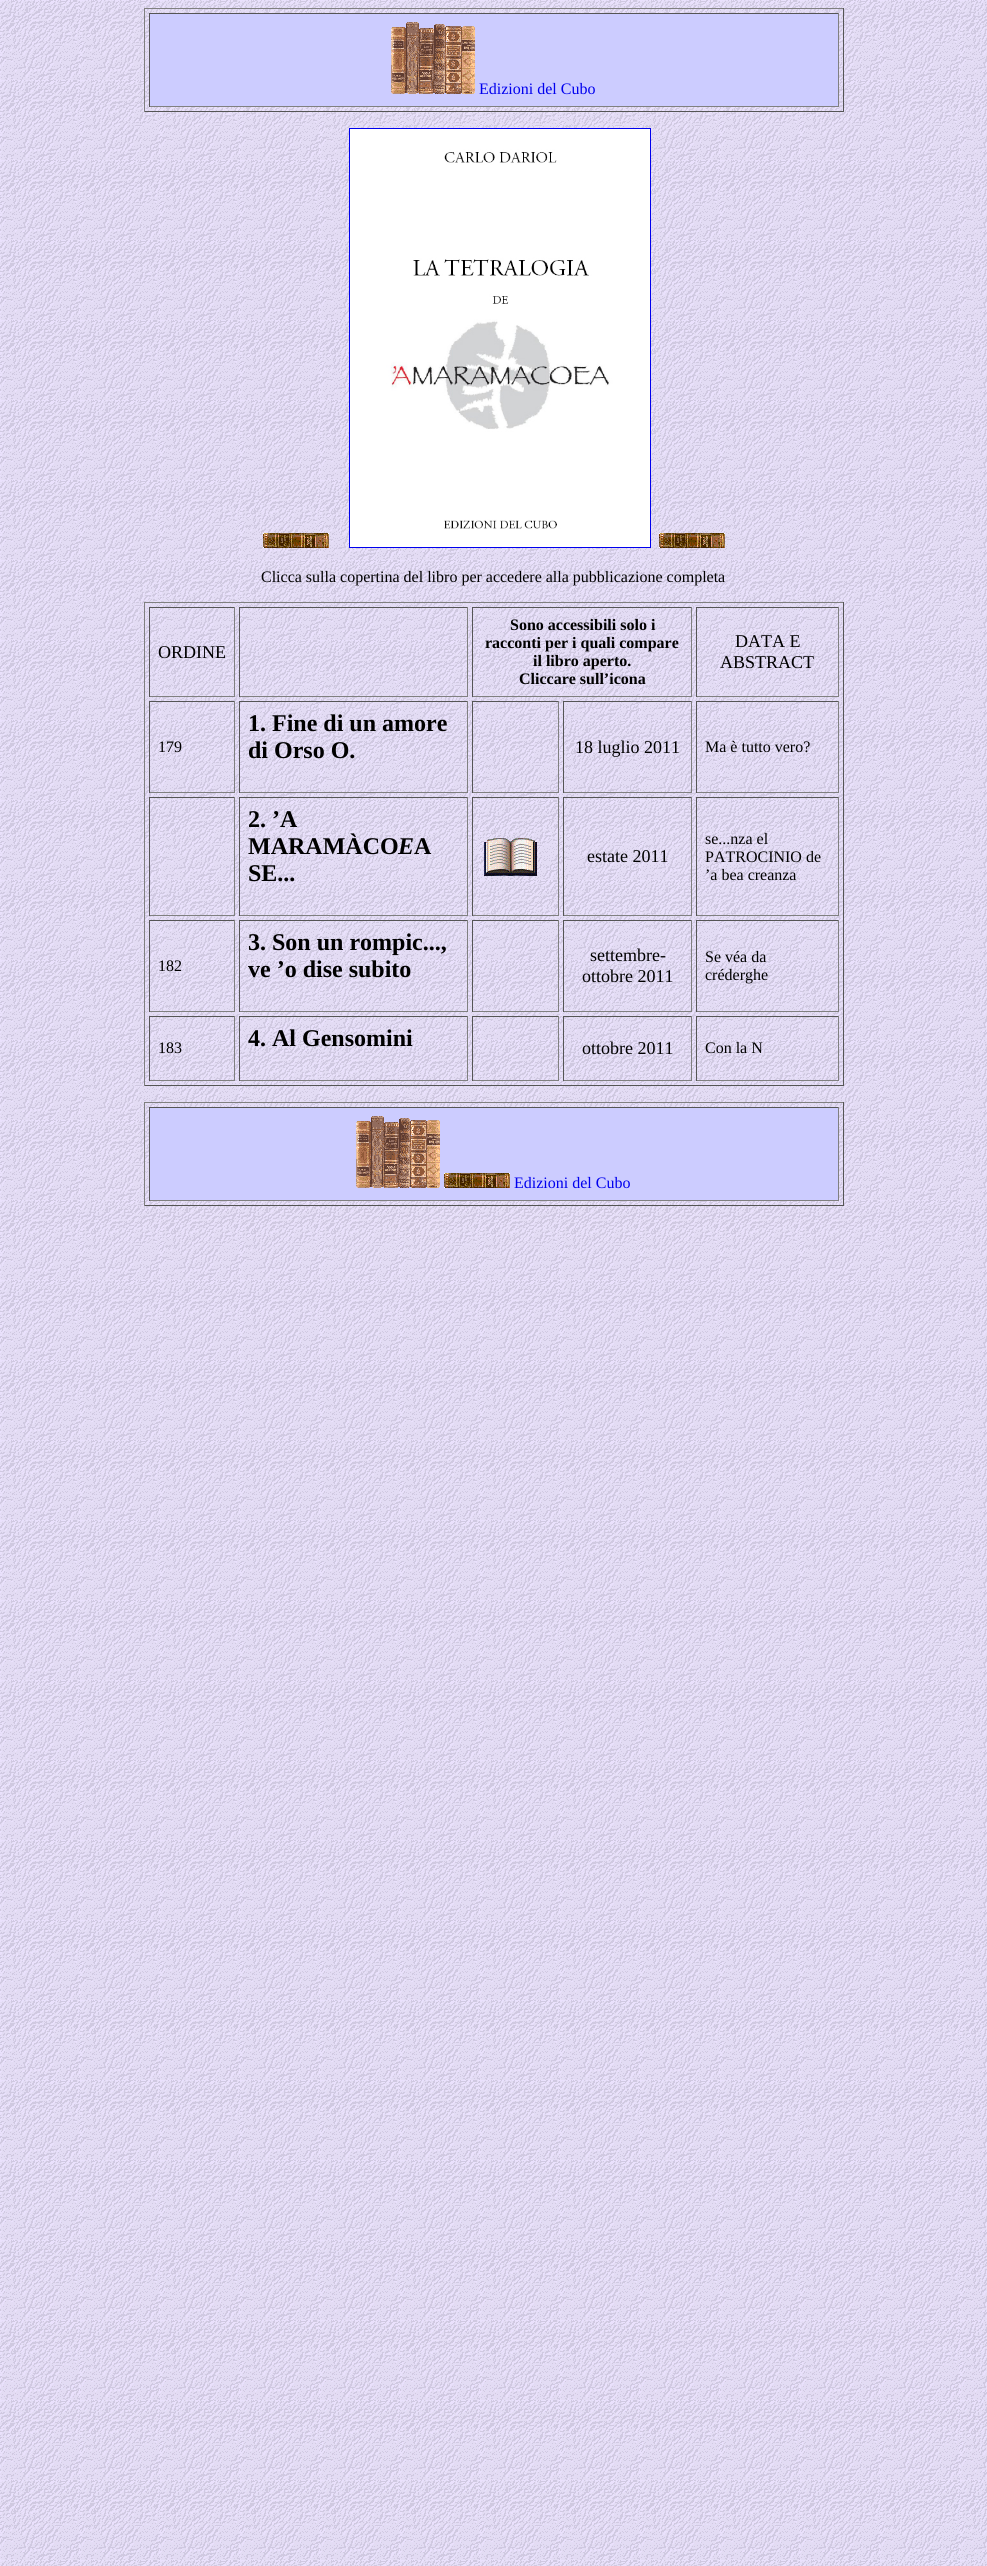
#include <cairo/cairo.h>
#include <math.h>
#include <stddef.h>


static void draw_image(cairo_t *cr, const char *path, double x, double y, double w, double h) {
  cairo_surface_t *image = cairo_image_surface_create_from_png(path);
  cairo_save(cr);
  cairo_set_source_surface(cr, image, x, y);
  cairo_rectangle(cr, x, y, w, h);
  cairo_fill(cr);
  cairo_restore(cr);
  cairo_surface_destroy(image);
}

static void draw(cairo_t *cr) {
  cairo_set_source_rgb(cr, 1, 1, 1);
  cairo_paint(cr);
  draw_image(cr, "images/1.png", 0, 0, 987, 2566);
  cairo_set_source_rgb(cr, 128 / 255.0, 128 / 255.0, 128 / 255.0);
  cairo_rectangle(cr, 144, 8, 700, 1);
  cairo_fill(cr);
  cairo_set_source_rgb(cr, 85 / 255.0, 85 / 255.0, 85 / 255.0);
  cairo_rectangle(cr, 843, 8, 1, 104);
  cairo_fill(cr);
  cairo_rectangle(cr, 144, 111, 700, 1);
  cairo_fill(cr);
  cairo_set_source_rgb(cr, 128 / 255.0, 128 / 255.0, 128 / 255.0);
  cairo_rectangle(cr, 144, 8, 1, 104);
  cairo_fill(cr);
  cairo_set_source_rgb(cr, 204 / 255.0, 204 / 255.0, 1);
  cairo_rectangle(cr, 150, 14, 688, 92);
  cairo_fill(cr);
  cairo_set_source_rgb(cr, 85 / 255.0, 85 / 255.0, 85 / 255.0);
  cairo_rectangle(cr, 149, 13, 690, 1);
  cairo_fill(cr);
  cairo_set_source_rgb(cr, 128 / 255.0, 128 / 255.0, 128 / 255.0);
  cairo_rectangle(cr, 838, 13, 1, 94);
  cairo_fill(cr);
  cairo_rectangle(cr, 149, 106, 690, 1);
  cairo_fill(cr);
  cairo_set_source_rgb(cr, 85 / 255.0, 85 / 255.0, 85 / 255.0);
  cairo_rectangle(cr, 149, 13, 1, 94);
  cairo_fill(cr);
  draw_image(cr, "images/2.png", 391, 22, 84, 72);
  cairo_rectangle(cr, 349.5, 128.5, 301, 419);
  cairo_set_source_rgb(cr, 0, 0, 238 / 255.0);
  cairo_set_line_width(cr, 1);
  cairo_stroke(cr);
  draw_image(cr, "images/3.png", 263, 533, 66, 15);
  draw_image(cr, "images/4.png", 350, 129, 300, 418);
  draw_image(cr, "images/3.png", 659, 533, 66, 15);
  cairo_set_source_rgb(cr, 128 / 255.0, 128 / 255.0, 128 / 255.0);
  cairo_rectangle(cr, 144, 602, 700, 1);
  cairo_fill(cr);
  cairo_set_source_rgb(cr, 85 / 255.0, 85 / 255.0, 85 / 255.0);
  cairo_rectangle(cr, 843, 602, 1, 484);
  cairo_fill(cr);
  cairo_rectangle(cr, 144, 1085, 700, 1);
  cairo_fill(cr);
  cairo_set_source_rgb(cr, 128 / 255.0, 128 / 255.0, 128 / 255.0);
  cairo_rectangle(cr, 144, 602, 1, 484);
  cairo_fill(cr);
  cairo_set_source_rgb(cr, 85 / 255.0, 85 / 255.0, 85 / 255.0);
  cairo_rectangle(cr, 149, 607, 86, 1);
  cairo_fill(cr);
  cairo_set_source_rgb(cr, 128 / 255.0, 128 / 255.0, 128 / 255.0);
  cairo_rectangle(cr, 234, 607, 1, 90);
  cairo_fill(cr);
  cairo_rectangle(cr, 149, 696, 86, 1);
  cairo_fill(cr);
  cairo_set_source_rgb(cr, 85 / 255.0, 85 / 255.0, 85 / 255.0);
  cairo_rectangle(cr, 149, 607, 1, 90);
  cairo_fill(cr);
  cairo_rectangle(cr, 239, 607, 229, 1);
  cairo_fill(cr);
  cairo_set_source_rgb(cr, 128 / 255.0, 128 / 255.0, 128 / 255.0);
  cairo_rectangle(cr, 467, 607, 1, 90);
  cairo_fill(cr);
  cairo_rectangle(cr, 239, 696, 229, 1);
  cairo_fill(cr);
  cairo_set_source_rgb(cr, 85 / 255.0, 85 / 255.0, 85 / 255.0);
  cairo_rectangle(cr, 239, 607, 1, 90);
  cairo_fill(cr);
  cairo_rectangle(cr, 472, 607, 220, 1);
  cairo_fill(cr);
  cairo_set_source_rgb(cr, 128 / 255.0, 128 / 255.0, 128 / 255.0);
  cairo_rectangle(cr, 691, 607, 1, 90);
  cairo_fill(cr);
  cairo_rectangle(cr, 472, 696, 220, 1);
  cairo_fill(cr);
  cairo_set_source_rgb(cr, 85 / 255.0, 85 / 255.0, 85 / 255.0);
  cairo_rectangle(cr, 472, 607, 1, 90);
  cairo_fill(cr);
  cairo_rectangle(cr, 696, 607, 143, 1);
  cairo_fill(cr);
  cairo_set_source_rgb(cr, 128 / 255.0, 128 / 255.0, 128 / 255.0);
  cairo_rectangle(cr, 838, 607, 1, 90);
  cairo_fill(cr);
  cairo_rectangle(cr, 696, 696, 143, 1);
  cairo_fill(cr);
  cairo_set_source_rgb(cr, 85 / 255.0, 85 / 255.0, 85 / 255.0);
  cairo_rectangle(cr, 696, 607, 1, 90);
  cairo_fill(cr);
  cairo_rectangle(cr, 149, 701, 86, 1);
  cairo_fill(cr);
  cairo_set_source_rgb(cr, 128 / 255.0, 128 / 255.0, 128 / 255.0);
  cairo_rectangle(cr, 234, 701, 1, 92);
  cairo_fill(cr);
  cairo_rectangle(cr, 149, 792, 86, 1);
  cairo_fill(cr);
  cairo_set_source_rgb(cr, 85 / 255.0, 85 / 255.0, 85 / 255.0);
  cairo_rectangle(cr, 149, 701, 1, 92);
  cairo_fill(cr);
  cairo_rectangle(cr, 239, 701, 229, 1);
  cairo_fill(cr);
  cairo_set_source_rgb(cr, 128 / 255.0, 128 / 255.0, 128 / 255.0);
  cairo_rectangle(cr, 467, 701, 1, 92);
  cairo_fill(cr);
  cairo_rectangle(cr, 239, 792, 229, 1);
  cairo_fill(cr);
  cairo_set_source_rgb(cr, 85 / 255.0, 85 / 255.0, 85 / 255.0);
  cairo_rectangle(cr, 239, 701, 1, 92);
  cairo_fill(cr);
  cairo_rectangle(cr, 472, 701, 87, 1);
  cairo_fill(cr);
  cairo_set_source_rgb(cr, 128 / 255.0, 128 / 255.0, 128 / 255.0);
  cairo_rectangle(cr, 558, 701, 1, 92);
  cairo_fill(cr);
  cairo_rectangle(cr, 472, 792, 87, 1);
  cairo_fill(cr);
  cairo_set_source_rgb(cr, 85 / 255.0, 85 / 255.0, 85 / 255.0);
  cairo_rectangle(cr, 472, 701, 1, 92);
  cairo_fill(cr);
  cairo_rectangle(cr, 563, 701, 129, 1);
  cairo_fill(cr);
  cairo_set_source_rgb(cr, 128 / 255.0, 128 / 255.0, 128 / 255.0);
  cairo_rectangle(cr, 691, 701, 1, 92);
  cairo_fill(cr);
  cairo_rectangle(cr, 563, 792, 129, 1);
  cairo_fill(cr);
  cairo_set_source_rgb(cr, 85 / 255.0, 85 / 255.0, 85 / 255.0);
  cairo_rectangle(cr, 563, 701, 1, 92);
  cairo_fill(cr);
  cairo_rectangle(cr, 696, 701, 143, 1);
  cairo_fill(cr);
  cairo_set_source_rgb(cr, 128 / 255.0, 128 / 255.0, 128 / 255.0);
  cairo_rectangle(cr, 838, 701, 1, 92);
  cairo_fill(cr);
  cairo_rectangle(cr, 696, 792, 143, 1);
  cairo_fill(cr);
  cairo_set_source_rgb(cr, 85 / 255.0, 85 / 255.0, 85 / 255.0);
  cairo_rectangle(cr, 696, 701, 1, 92);
  cairo_fill(cr);
  cairo_rectangle(cr, 149, 797, 86, 1);
  cairo_fill(cr);
  cairo_set_source_rgb(cr, 128 / 255.0, 128 / 255.0, 128 / 255.0);
  cairo_rectangle(cr, 234, 797, 1, 119);
  cairo_fill(cr);
  cairo_rectangle(cr, 149, 915, 86, 1);
  cairo_fill(cr);
  cairo_set_source_rgb(cr, 85 / 255.0, 85 / 255.0, 85 / 255.0);
  cairo_rectangle(cr, 149, 797, 1, 119);
  cairo_fill(cr);
  cairo_rectangle(cr, 239, 797, 229, 1);
  cairo_fill(cr);
  cairo_set_source_rgb(cr, 128 / 255.0, 128 / 255.0, 128 / 255.0);
  cairo_rectangle(cr, 467, 797, 1, 119);
  cairo_fill(cr);
  cairo_rectangle(cr, 239, 915, 229, 1);
  cairo_fill(cr);
  cairo_set_source_rgb(cr, 85 / 255.0, 85 / 255.0, 85 / 255.0);
  cairo_rectangle(cr, 239, 797, 1, 119);
  cairo_fill(cr);
  cairo_rectangle(cr, 472, 797, 87, 1);
  cairo_fill(cr);
  cairo_set_source_rgb(cr, 128 / 255.0, 128 / 255.0, 128 / 255.0);
  cairo_rectangle(cr, 558, 797, 1, 119);
  cairo_fill(cr);
  cairo_rectangle(cr, 472, 915, 87, 1);
  cairo_fill(cr);
  cairo_set_source_rgb(cr, 85 / 255.0, 85 / 255.0, 85 / 255.0);
  cairo_rectangle(cr, 472, 797, 1, 119);
  cairo_fill(cr);
  draw_image(cr, "images/5.png", 484, 838, 53, 38);
  cairo_rectangle(cr, 563, 797, 129, 1);
  cairo_fill(cr);
  cairo_set_source_rgb(cr, 128 / 255.0, 128 / 255.0, 128 / 255.0);
  cairo_rectangle(cr, 691, 797, 1, 119);
  cairo_fill(cr);
  cairo_rectangle(cr, 563, 915, 129, 1);
  cairo_fill(cr);
  cairo_set_source_rgb(cr, 85 / 255.0, 85 / 255.0, 85 / 255.0);
  cairo_rectangle(cr, 563, 797, 1, 119);
  cairo_fill(cr);
  cairo_rectangle(cr, 696, 797, 143, 1);
  cairo_fill(cr);
  cairo_set_source_rgb(cr, 128 / 255.0, 128 / 255.0, 128 / 255.0);
  cairo_rectangle(cr, 838, 797, 1, 119);
  cairo_fill(cr);
  cairo_rectangle(cr, 696, 915, 143, 1);
  cairo_fill(cr);
  cairo_set_source_rgb(cr, 85 / 255.0, 85 / 255.0, 85 / 255.0);
  cairo_rectangle(cr, 696, 797, 1, 119);
  cairo_fill(cr);
  cairo_rectangle(cr, 149, 920, 86, 1);
  cairo_fill(cr);
  cairo_set_source_rgb(cr, 128 / 255.0, 128 / 255.0, 128 / 255.0);
  cairo_rectangle(cr, 234, 920, 1, 92);
  cairo_fill(cr);
  cairo_rectangle(cr, 149, 1011, 86, 1);
  cairo_fill(cr);
  cairo_set_source_rgb(cr, 85 / 255.0, 85 / 255.0, 85 / 255.0);
  cairo_rectangle(cr, 149, 920, 1, 92);
  cairo_fill(cr);
  cairo_rectangle(cr, 239, 920, 229, 1);
  cairo_fill(cr);
  cairo_set_source_rgb(cr, 128 / 255.0, 128 / 255.0, 128 / 255.0);
  cairo_rectangle(cr, 467, 920, 1, 92);
  cairo_fill(cr);
  cairo_rectangle(cr, 239, 1011, 229, 1);
  cairo_fill(cr);
  cairo_set_source_rgb(cr, 85 / 255.0, 85 / 255.0, 85 / 255.0);
  cairo_rectangle(cr, 239, 920, 1, 92);
  cairo_fill(cr);
  cairo_rectangle(cr, 472, 920, 87, 1);
  cairo_fill(cr);
  cairo_set_source_rgb(cr, 128 / 255.0, 128 / 255.0, 128 / 255.0);
  cairo_rectangle(cr, 558, 920, 1, 92);
  cairo_fill(cr);
  cairo_rectangle(cr, 472, 1011, 87, 1);
  cairo_fill(cr);
  cairo_set_source_rgb(cr, 85 / 255.0, 85 / 255.0, 85 / 255.0);
  cairo_rectangle(cr, 472, 920, 1, 92);
  cairo_fill(cr);
  cairo_rectangle(cr, 563, 920, 129, 1);
  cairo_fill(cr);
  cairo_set_source_rgb(cr, 128 / 255.0, 128 / 255.0, 128 / 255.0);
  cairo_rectangle(cr, 691, 920, 1, 92);
  cairo_fill(cr);
  cairo_rectangle(cr, 563, 1011, 129, 1);
  cairo_fill(cr);
  cairo_set_source_rgb(cr, 85 / 255.0, 85 / 255.0, 85 / 255.0);
  cairo_rectangle(cr, 563, 920, 1, 92);
  cairo_fill(cr);
  cairo_rectangle(cr, 696, 920, 143, 1);
  cairo_fill(cr);
  cairo_set_source_rgb(cr, 128 / 255.0, 128 / 255.0, 128 / 255.0);
  cairo_rectangle(cr, 838, 920, 1, 92);
  cairo_fill(cr);
  cairo_rectangle(cr, 696, 1011, 143, 1);
  cairo_fill(cr);
  cairo_set_source_rgb(cr, 85 / 255.0, 85 / 255.0, 85 / 255.0);
  cairo_rectangle(cr, 696, 920, 1, 92);
  cairo_fill(cr);
  cairo_rectangle(cr, 149, 1016, 86, 1);
  cairo_fill(cr);
  cairo_set_source_rgb(cr, 128 / 255.0, 128 / 255.0, 128 / 255.0);
  cairo_rectangle(cr, 234, 1016, 1, 65);
  cairo_fill(cr);
  cairo_rectangle(cr, 149, 1080, 86, 1);
  cairo_fill(cr);
  cairo_set_source_rgb(cr, 85 / 255.0, 85 / 255.0, 85 / 255.0);
  cairo_rectangle(cr, 149, 1016, 1, 65);
  cairo_fill(cr);
  cairo_rectangle(cr, 239, 1016, 229, 1);
  cairo_fill(cr);
  cairo_set_source_rgb(cr, 128 / 255.0, 128 / 255.0, 128 / 255.0);
  cairo_rectangle(cr, 467, 1016, 1, 65);
  cairo_fill(cr);
  cairo_rectangle(cr, 239, 1080, 229, 1);
  cairo_fill(cr);
  cairo_set_source_rgb(cr, 85 / 255.0, 85 / 255.0, 85 / 255.0);
  cairo_rectangle(cr, 239, 1016, 1, 65);
  cairo_fill(cr);
  cairo_rectangle(cr, 472, 1016, 87, 1);
  cairo_fill(cr);
  cairo_set_source_rgb(cr, 128 / 255.0, 128 / 255.0, 128 / 255.0);
  cairo_rectangle(cr, 558, 1016, 1, 65);
  cairo_fill(cr);
  cairo_rectangle(cr, 472, 1080, 87, 1);
  cairo_fill(cr);
  cairo_set_source_rgb(cr, 85 / 255.0, 85 / 255.0, 85 / 255.0);
  cairo_rectangle(cr, 472, 1016, 1, 65);
  cairo_fill(cr);
  cairo_rectangle(cr, 563, 1016, 129, 1);
  cairo_fill(cr);
  cairo_set_source_rgb(cr, 128 / 255.0, 128 / 255.0, 128 / 255.0);
  cairo_rectangle(cr, 691, 1016, 1, 65);
  cairo_fill(cr);
  cairo_rectangle(cr, 563, 1080, 129, 1);
  cairo_fill(cr);
  cairo_set_source_rgb(cr, 85 / 255.0, 85 / 255.0, 85 / 255.0);
  cairo_rectangle(cr, 563, 1016, 1, 65);
  cairo_fill(cr);
  cairo_rectangle(cr, 696, 1016, 143, 1);
  cairo_fill(cr);
  cairo_set_source_rgb(cr, 128 / 255.0, 128 / 255.0, 128 / 255.0);
  cairo_rectangle(cr, 838, 1016, 1, 65);
  cairo_fill(cr);
  cairo_rectangle(cr, 696, 1080, 143, 1);
  cairo_fill(cr);
  cairo_set_source_rgb(cr, 85 / 255.0, 85 / 255.0, 85 / 255.0);
  cairo_rectangle(cr, 696, 1016, 1, 65);
  cairo_fill(cr);
  cairo_set_source_rgb(cr, 128 / 255.0, 128 / 255.0, 128 / 255.0);
  cairo_rectangle(cr, 144, 1102, 700, 1);
  cairo_fill(cr);
  cairo_set_source_rgb(cr, 85 / 255.0, 85 / 255.0, 85 / 255.0);
  cairo_rectangle(cr, 843, 1102, 1, 104);
  cairo_fill(cr);
  cairo_rectangle(cr, 144, 1205, 700, 1);
  cairo_fill(cr);
  cairo_set_source_rgb(cr, 128 / 255.0, 128 / 255.0, 128 / 255.0);
  cairo_rectangle(cr, 144, 1102, 1, 104);
  cairo_fill(cr);
  cairo_set_source_rgb(cr, 204 / 255.0, 204 / 255.0, 1);
  cairo_rectangle(cr, 150, 1108, 688, 92);
  cairo_fill(cr);
  cairo_set_source_rgb(cr, 85 / 255.0, 85 / 255.0, 85 / 255.0);
  cairo_rectangle(cr, 149, 1107, 690, 1);
  cairo_fill(cr);
  cairo_set_source_rgb(cr, 128 / 255.0, 128 / 255.0, 128 / 255.0);
  cairo_rectangle(cr, 838, 1107, 1, 94);
  cairo_fill(cr);
  cairo_rectangle(cr, 149, 1200, 690, 1);
  cairo_fill(cr);
  cairo_set_source_rgb(cr, 85 / 255.0, 85 / 255.0, 85 / 255.0);
  cairo_rectangle(cr, 149, 1107, 1, 94);
  cairo_fill(cr);
  draw_image(cr, "images/2.png", 356, 1116, 84, 72);
  draw_image(cr, "images/3.png", 444, 1173, 66, 15);
  cairo_select_font_face(cr, "Liberation Serif", CAIRO_FONT_SLANT_NORMAL, CAIRO_FONT_WEIGHT_NORMAL);
  cairo_set_font_size(cr, 16);
  cairo_set_source_rgb(cr, 0, 0, 238 / 255.0);
  cairo_move_to(cr, 479, 94);
  cairo_show_text(cr, "Edizioni del Cubo");
  cairo_set_source_rgb(cr, 0, 0, 0);
  cairo_move_to(cr, 261, 582);
  cairo_show_text(cr, "Clicca sulla copertina del libro per accedere alla pubblicazione completa");
  cairo_set_font_size(cr, 18);
  cairo_move_to(cr, 158, 658);
  cairo_show_text(cr, "ORDINE");
  cairo_select_font_face(cr, "Liberation Serif", CAIRO_FONT_SLANT_NORMAL, CAIRO_FONT_WEIGHT_BOLD);
  cairo_set_font_size(cr, 16);
  cairo_move_to(cr, 510, 630);
  cairo_show_text(cr, "Sono accessibili solo i");
  cairo_move_to(cr, 485, 648);
  cairo_show_text(cr, "racconti per i quali compare");
  cairo_move_to(cr, 533, 666);
  cairo_show_text(cr, "il libro aperto.");
  cairo_move_to(cr, 519, 684);
  cairo_show_text(cr, "Cliccare sull’icona");
  cairo_select_font_face(cr, "Liberation Serif", CAIRO_FONT_SLANT_NORMAL, CAIRO_FONT_WEIGHT_NORMAL);
  cairo_set_font_size(cr, 18);
  cairo_move_to(cr, 735, 647);
  cairo_show_text(cr, "DATA E");
  cairo_move_to(cr, 720, 668);
  cairo_show_text(cr, "ABSTRACT");
  cairo_set_font_size(cr, 16);
  cairo_move_to(cr, 158, 752);
  cairo_show_text(cr, "179");
  cairo_select_font_face(cr, "Liberation Serif", CAIRO_FONT_SLANT_NORMAL, CAIRO_FONT_WEIGHT_BOLD);
  cairo_set_font_size(cr, 24);
  cairo_move_to(cr, 248, 731);
  cairo_show_text(cr, "1. Fine di un amore");
  cairo_move_to(cr, 248, 758);
  cairo_show_text(cr, "di Orso O.");
  cairo_select_font_face(cr, "Liberation Serif", CAIRO_FONT_SLANT_NORMAL, CAIRO_FONT_WEIGHT_NORMAL);
  cairo_set_font_size(cr, 18);
  cairo_move_to(cr, 575, 753);
  cairo_show_text(cr, "18 luglio 2011");
  cairo_set_font_size(cr, 16);
  cairo_move_to(cr, 705, 752);
  cairo_show_text(cr, "Ma è tutto vero?");
  cairo_select_font_face(cr, "Liberation Serif", CAIRO_FONT_SLANT_NORMAL, CAIRO_FONT_WEIGHT_BOLD);
  cairo_set_font_size(cr, 24);
  cairo_move_to(cr, 248, 827);
  cairo_show_text(cr, "2. ’A");
  cairo_move_to(cr, 248, 854);
  cairo_show_text(cr, "MARAMÀCO");
  cairo_select_font_face(cr, "Liberation Serif", CAIRO_FONT_SLANT_ITALIC, CAIRO_FONT_WEIGHT_BOLD);
  cairo_move_to(cr, 398, 854);
  cairo_show_text(cr, "E");
  cairo_select_font_face(cr, "Liberation Serif", CAIRO_FONT_SLANT_NORMAL, CAIRO_FONT_WEIGHT_BOLD);
  cairo_move_to(cr, 414, 854);
  cairo_show_text(cr, "A");
  cairo_move_to(cr, 248, 881);
  cairo_show_text(cr, "SE...");
  cairo_select_font_face(cr, "Liberation Serif", CAIRO_FONT_SLANT_NORMAL, CAIRO_FONT_WEIGHT_NORMAL);
  cairo_set_font_size(cr, 18);
  cairo_move_to(cr, 587, 862);
  cairo_show_text(cr, "estate 2011");
  cairo_set_font_size(cr, 16);
  cairo_move_to(cr, 705, 844);
  cairo_show_text(cr, "se...nza el");
  cairo_move_to(cr, 705, 862);
  cairo_show_text(cr, "PATROCINIO de");
  cairo_move_to(cr, 705, 880);
  cairo_show_text(cr, "’a bea creanza");
  cairo_move_to(cr, 158, 971);
  cairo_show_text(cr, "182");
  cairo_select_font_face(cr, "Liberation Serif", CAIRO_FONT_SLANT_NORMAL, CAIRO_FONT_WEIGHT_BOLD);
  cairo_set_font_size(cr, 24);
  cairo_move_to(cr, 248, 950);
  cairo_show_text(cr, "3. Son un rompic...,");
  cairo_move_to(cr, 248, 977);
  cairo_show_text(cr, "ve ’o dise subito");
  cairo_select_font_face(cr, "Liberation Serif", CAIRO_FONT_SLANT_NORMAL, CAIRO_FONT_WEIGHT_NORMAL);
  cairo_set_font_size(cr, 18);
  cairo_move_to(cr, 590, 961);
  cairo_show_text(cr, "settembre-");
  cairo_move_to(cr, 582, 982);
  cairo_show_text(cr, "ottobre 2011");
  cairo_set_font_size(cr, 16);
  cairo_move_to(cr, 705, 962);
  cairo_show_text(cr, "Se véa da");
  cairo_move_to(cr, 705, 980);
  cairo_show_text(cr, "créderghe");
  cairo_move_to(cr, 158, 1053);
  cairo_show_text(cr, "183");
  cairo_select_font_face(cr, "Liberation Serif", CAIRO_FONT_SLANT_NORMAL, CAIRO_FONT_WEIGHT_BOLD);
  cairo_set_font_size(cr, 24);
  cairo_move_to(cr, 248, 1046);
  cairo_show_text(cr, "4. Al Gensomini");
  cairo_select_font_face(cr, "Liberation Serif", CAIRO_FONT_SLANT_NORMAL, CAIRO_FONT_WEIGHT_NORMAL);
  cairo_set_font_size(cr, 18);
  cairo_move_to(cr, 582, 1054);
  cairo_show_text(cr, "ottobre 2011");
  cairo_set_font_size(cr, 16);
  cairo_move_to(cr, 705, 1053);
  cairo_show_text(cr, "Con la N");
  cairo_set_source_rgb(cr, 0, 0, 238 / 255.0);
  cairo_move_to(cr, 514, 1188);
  cairo_show_text(cr, "Edizioni del Cubo");
}

int main(void) {
  cairo_surface_t *surface = cairo_image_surface_create(CAIRO_FORMAT_RGB24, 987, 2566);
  cairo_t *cr = cairo_create(surface);
  cairo_font_options_t *options = cairo_font_options_create();
  cairo_font_options_set_hint_metrics(options, CAIRO_HINT_METRICS_OFF);
  cairo_font_options_set_hint_style(options, CAIRO_HINT_STYLE_NONE);
  cairo_set_font_options(cr, options);
  cairo_set_miter_limit(cr, 4);
  draw(cr);
  cairo_surface_write_to_png(surface, "out.png");
  cairo_font_options_destroy(options);
  cairo_destroy(cr);
  cairo_surface_destroy(surface);
  return 0;
}
